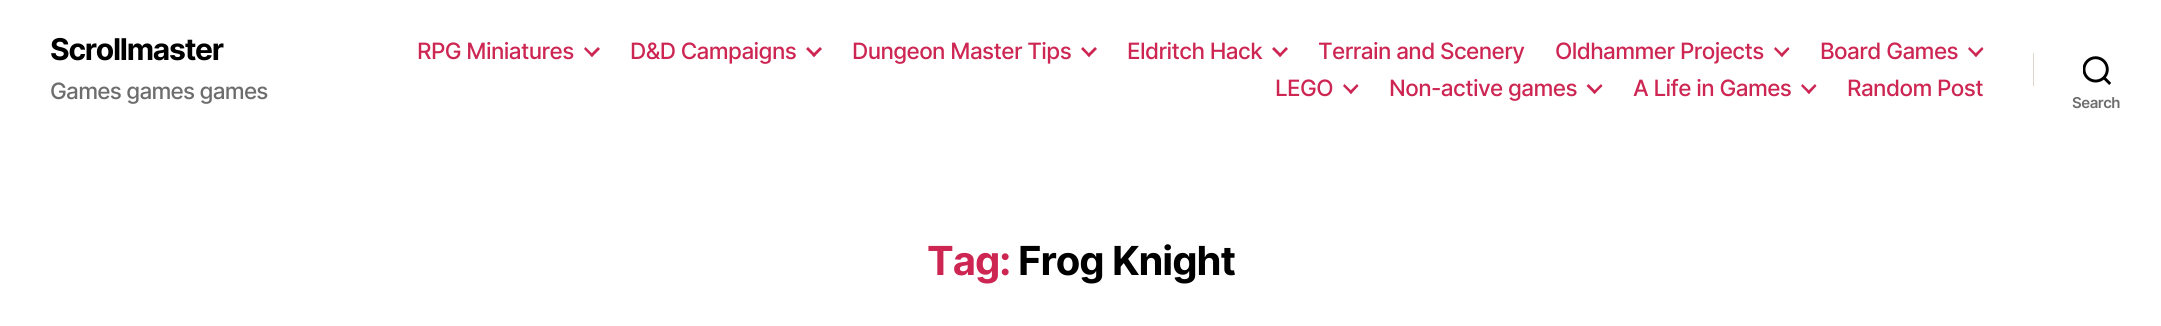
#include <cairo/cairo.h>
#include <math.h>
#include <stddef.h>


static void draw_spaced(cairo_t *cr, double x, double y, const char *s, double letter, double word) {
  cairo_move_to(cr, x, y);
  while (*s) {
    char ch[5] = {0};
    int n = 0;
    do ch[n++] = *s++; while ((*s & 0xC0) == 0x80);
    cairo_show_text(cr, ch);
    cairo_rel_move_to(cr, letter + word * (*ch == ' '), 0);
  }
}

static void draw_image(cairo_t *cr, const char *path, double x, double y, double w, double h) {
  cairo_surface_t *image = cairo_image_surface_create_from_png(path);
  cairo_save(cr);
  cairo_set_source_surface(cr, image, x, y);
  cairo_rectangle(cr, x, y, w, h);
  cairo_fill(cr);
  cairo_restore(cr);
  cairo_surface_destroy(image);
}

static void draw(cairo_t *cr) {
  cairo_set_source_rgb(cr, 1, 1, 1);
  cairo_paint(cr);
  cairo_set_source_rgb(cr, 205 / 255.0, 38 / 255.0, 83 / 255.0);
  cairo_new_path(cr);
  cairo_move_to(cr, 584, 49);
  cairo_line_to(cr, 585.5, 47);
  cairo_line_to(cr, 593.5, 55);
  cairo_line_to(cr, 592, 57);
  cairo_close_path(cr);
  cairo_fill(cr);
  cairo_new_path(cr);
  cairo_move_to(cr, 590, 55);
  cairo_line_to(cr, 598, 47);
  cairo_line_to(cr, 600, 49);
  cairo_line_to(cr, 592, 57);
  cairo_close_path(cr);
  cairo_fill(cr);
  cairo_new_path(cr);
  cairo_move_to(cr, 806, 49);
  cairo_line_to(cr, 808, 47);
  cairo_line_to(cr, 816, 55);
  cairo_line_to(cr, 814, 57);
  cairo_close_path(cr);
  cairo_fill(cr);
  cairo_new_path(cr);
  cairo_move_to(cr, 812, 55);
  cairo_line_to(cr, 820, 47);
  cairo_line_to(cr, 822, 49);
  cairo_line_to(cr, 814, 57);
  cairo_close_path(cr);
  cairo_fill(cr);
  cairo_new_path(cr);
  cairo_move_to(cr, 1081, 49);
  cairo_line_to(cr, 1083, 47);
  cairo_line_to(cr, 1090.5, 55);
  cairo_line_to(cr, 1089, 57);
  cairo_close_path(cr);
  cairo_fill(cr);
  cairo_new_path(cr);
  cairo_move_to(cr, 1087, 55);
  cairo_line_to(cr, 1095, 47);
  cairo_line_to(cr, 1097, 49);
  cairo_line_to(cr, 1089, 57);
  cairo_close_path(cr);
  cairo_fill(cr);
  cairo_new_path(cr);
  cairo_move_to(cr, 1272, 49);
  cairo_line_to(cr, 1274, 47);
  cairo_line_to(cr, 1282, 55);
  cairo_line_to(cr, 1280, 57);
  cairo_close_path(cr);
  cairo_fill(cr);
  cairo_new_path(cr);
  cairo_move_to(cr, 1278.5, 55);
  cairo_line_to(cr, 1286, 47);
  cairo_line_to(cr, 1288, 49);
  cairo_line_to(cr, 1280, 57);
  cairo_close_path(cr);
  cairo_fill(cr);
  cairo_new_path(cr);
  cairo_move_to(cr, 1774, 49);
  cairo_line_to(cr, 1775.5, 47);
  cairo_line_to(cr, 1783.5, 55);
  cairo_line_to(cr, 1782, 57);
  cairo_close_path(cr);
  cairo_fill(cr);
  cairo_new_path(cr);
  cairo_move_to(cr, 1780, 55);
  cairo_line_to(cr, 1788, 47);
  cairo_line_to(cr, 1789.5, 49);
  cairo_line_to(cr, 1782, 57);
  cairo_close_path(cr);
  cairo_fill(cr);
  cairo_new_path(cr);
  cairo_move_to(cr, 1968, 49);
  cairo_line_to(cr, 1969.5, 47);
  cairo_line_to(cr, 1977.5, 55);
  cairo_line_to(cr, 1976, 57);
  cairo_close_path(cr);
  cairo_fill(cr);
  cairo_new_path(cr);
  cairo_move_to(cr, 1974, 55);
  cairo_line_to(cr, 1982, 47);
  cairo_line_to(cr, 1983.5, 49);
  cairo_line_to(cr, 1976, 57);
  cairo_close_path(cr);
  cairo_fill(cr);
  cairo_new_path(cr);
  cairo_move_to(cr, 1343, 86);
  cairo_line_to(cr, 1344.5, 84);
  cairo_line_to(cr, 1352.5, 92);
  cairo_line_to(cr, 1351, 94);
  cairo_close_path(cr);
  cairo_fill(cr);
  cairo_new_path(cr);
  cairo_move_to(cr, 1349, 92);
  cairo_line_to(cr, 1357, 84);
  cairo_line_to(cr, 1358.5, 86);
  cairo_line_to(cr, 1351, 94);
  cairo_close_path(cr);
  cairo_fill(cr);
  cairo_new_path(cr);
  cairo_move_to(cr, 1586.5, 86);
  cairo_line_to(cr, 1588.5, 84);
  cairo_line_to(cr, 1596.5, 92);
  cairo_line_to(cr, 1594.5, 94);
  cairo_close_path(cr);
  cairo_fill(cr);
  cairo_new_path(cr);
  cairo_move_to(cr, 1593, 92);
  cairo_line_to(cr, 1601, 84);
  cairo_line_to(cr, 1602.5, 86);
  cairo_line_to(cr, 1594.5, 94);
  cairo_close_path(cr);
  cairo_fill(cr);
  cairo_new_path(cr);
  cairo_move_to(cr, 1801, 86);
  cairo_line_to(cr, 1802.5, 84);
  cairo_line_to(cr, 1810.5, 92);
  cairo_line_to(cr, 1809, 94);
  cairo_close_path(cr);
  cairo_fill(cr);
  cairo_new_path(cr);
  cairo_move_to(cr, 1807, 92);
  cairo_line_to(cr, 1815, 84);
  cairo_line_to(cr, 1816.5, 86);
  cairo_line_to(cr, 1809, 94);
  cairo_close_path(cr);
  cairo_fill(cr);
  cairo_set_source_rgb(cr, 220 / 255.0, 215 / 255.0, 202 / 255.0);
  cairo_rectangle(cr, 2033, 53, 1, 33);
  cairo_fill(cr);
  draw_image(cr, "images/1.png", 2083, 56, 28, 29);
  cairo_select_font_face(cr, "Inter", CAIRO_FONT_SLANT_NORMAL, CAIRO_FONT_WEIGHT_BOLD);
  cairo_set_font_size(cr, 30);
  cairo_set_source_rgb(cr, 0, 0, 0);
  draw_spaced(cr, 50, 60, "Scrollmaster", -1.25, 0);
  cairo_select_font_face(cr, "Inter Medium", CAIRO_FONT_SLANT_NORMAL, CAIRO_FONT_WEIGHT_NORMAL);
  cairo_set_font_size(cr, 22.5);
  cairo_set_source_rgb(cr, 109 / 255.0, 109 / 255.0, 109 / 255.0);
  draw_spaced(cr, 50, 99, "Games games games", -0.75, 0);
  cairo_set_source_rgb(cr, 205 / 255.0, 38 / 255.0, 83 / 255.0);
  draw_spaced(cr, 417, 59, "RPG Miniatures", -0.6, 0);
  draw_spaced(cr, 630, 59, "D&D Campaigns", -0.6, 0);
  draw_spaced(cr, 852, 59, "Dungeon Master Tips", -0.6, 0);
  draw_spaced(cr, 1127, 59, "Eldritch Hack", -0.6, 0);
  draw_spaced(cr, 1318, 59, "Terrain and Scenery", -0.6, 0);
  draw_spaced(cr, 1555, 59, "Oldhammer Projects", -0.6, 0);
  draw_spaced(cr, 1820, 59, "Board Games", -0.6, 0);
  draw_spaced(cr, 1275, 96, "LEGO", -0.6, 0);
  draw_spaced(cr, 1389, 96, "Non-active games", -0.6, 0);
  draw_spaced(cr, 1633, 96, "A Life in Games", -0.6, 0);
  draw_spaced(cr, 1847, 96, "Random Post", -0.6, 0);
  cairo_select_font_face(cr, "Inter SemiBold", CAIRO_FONT_SLANT_NORMAL, CAIRO_FONT_WEIGHT_NORMAL);
  cairo_set_font_size(cr, 15);
  cairo_set_source_rgb(cr, 109 / 255.0, 109 / 255.0, 109 / 255.0);
  draw_spaced(cr, 2072, 108, "Search", -0.5, 0);
  cairo_select_font_face(cr, "Inter", CAIRO_FONT_SLANT_NORMAL, CAIRO_FONT_WEIGHT_BOLD);
  cairo_set_font_size(cr, 40);
  cairo_set_source_rgb(cr, 205 / 255.0, 38 / 255.0, 83 / 255.0);
  draw_spaced(cr, 927, 275, "Tag:", -1, 0);
  cairo_set_source_rgb(cr, 0, 0, 0);
  draw_spaced(cr, 1018, 275, "Frog Knight", -1, 0);
}

int main(void) {
  cairo_surface_t *surface = cairo_image_surface_create(CAIRO_FORMAT_RGB24, 2161, 326);
  cairo_t *cr = cairo_create(surface);
  cairo_font_options_t *options = cairo_font_options_create();
  cairo_font_options_set_hint_metrics(options, CAIRO_HINT_METRICS_OFF);
  cairo_font_options_set_hint_style(options, CAIRO_HINT_STYLE_NONE);
  cairo_set_font_options(cr, options);
  cairo_set_miter_limit(cr, 4);
  draw(cr);
  cairo_surface_write_to_png(surface, "out.png");
  cairo_font_options_destroy(options);
  cairo_destroy(cr);
  cairo_surface_destroy(surface);
  return 0;
}
